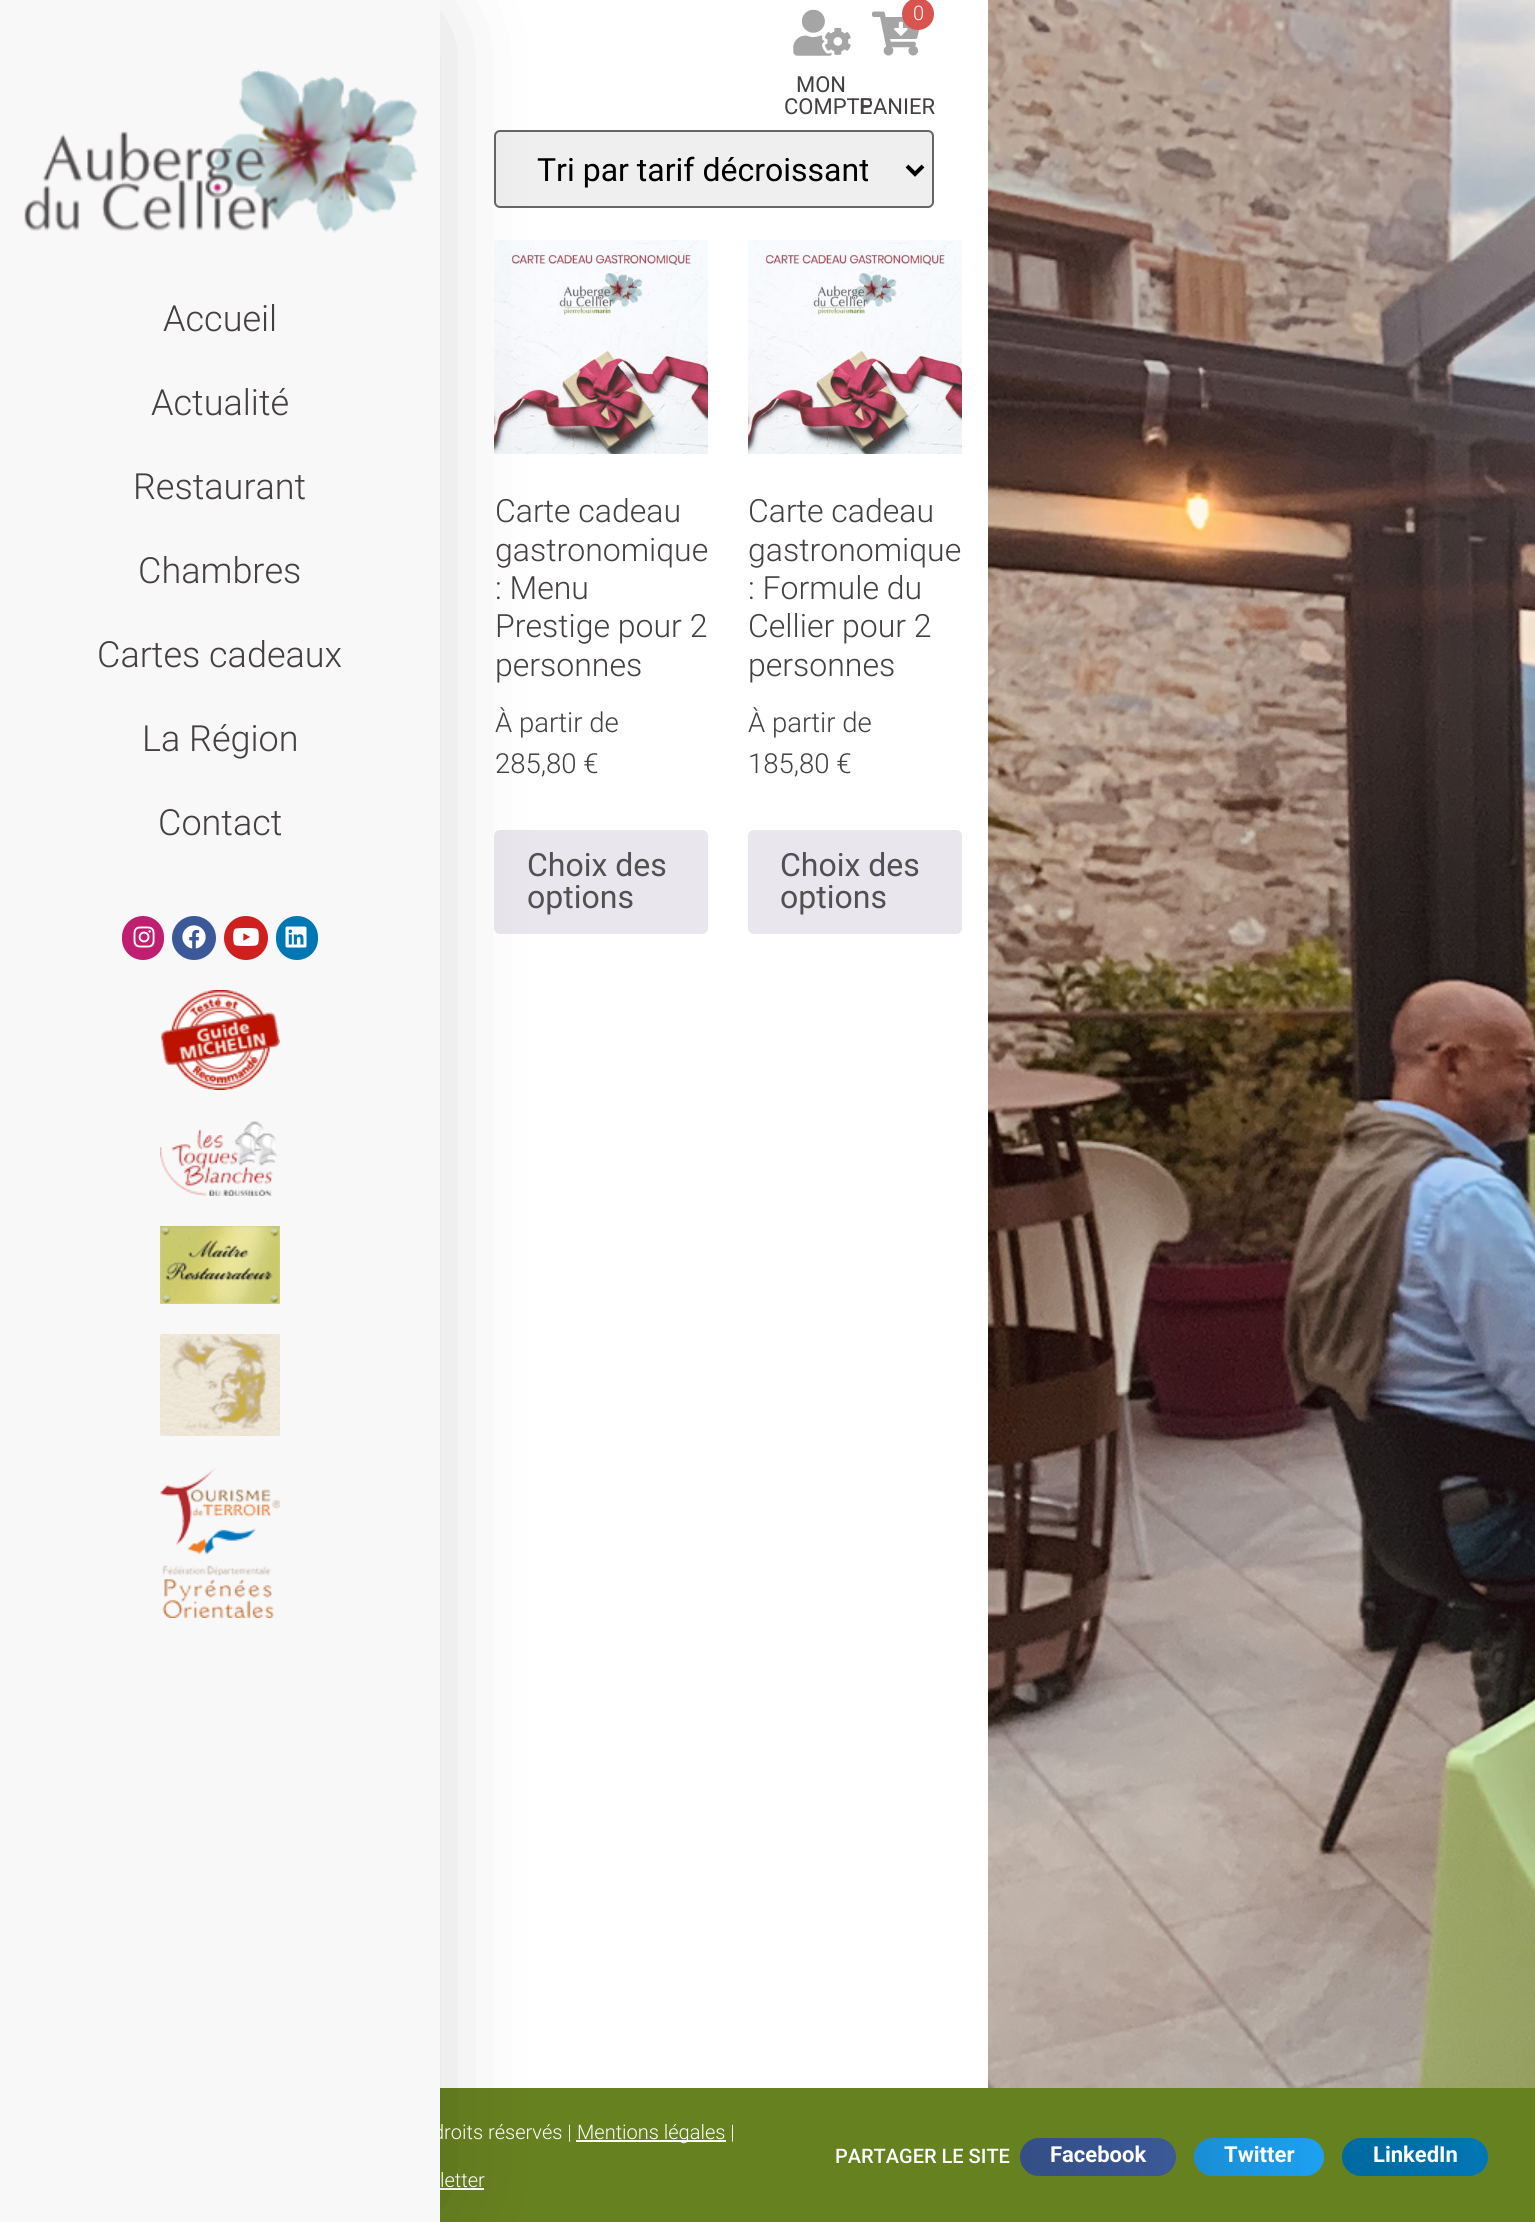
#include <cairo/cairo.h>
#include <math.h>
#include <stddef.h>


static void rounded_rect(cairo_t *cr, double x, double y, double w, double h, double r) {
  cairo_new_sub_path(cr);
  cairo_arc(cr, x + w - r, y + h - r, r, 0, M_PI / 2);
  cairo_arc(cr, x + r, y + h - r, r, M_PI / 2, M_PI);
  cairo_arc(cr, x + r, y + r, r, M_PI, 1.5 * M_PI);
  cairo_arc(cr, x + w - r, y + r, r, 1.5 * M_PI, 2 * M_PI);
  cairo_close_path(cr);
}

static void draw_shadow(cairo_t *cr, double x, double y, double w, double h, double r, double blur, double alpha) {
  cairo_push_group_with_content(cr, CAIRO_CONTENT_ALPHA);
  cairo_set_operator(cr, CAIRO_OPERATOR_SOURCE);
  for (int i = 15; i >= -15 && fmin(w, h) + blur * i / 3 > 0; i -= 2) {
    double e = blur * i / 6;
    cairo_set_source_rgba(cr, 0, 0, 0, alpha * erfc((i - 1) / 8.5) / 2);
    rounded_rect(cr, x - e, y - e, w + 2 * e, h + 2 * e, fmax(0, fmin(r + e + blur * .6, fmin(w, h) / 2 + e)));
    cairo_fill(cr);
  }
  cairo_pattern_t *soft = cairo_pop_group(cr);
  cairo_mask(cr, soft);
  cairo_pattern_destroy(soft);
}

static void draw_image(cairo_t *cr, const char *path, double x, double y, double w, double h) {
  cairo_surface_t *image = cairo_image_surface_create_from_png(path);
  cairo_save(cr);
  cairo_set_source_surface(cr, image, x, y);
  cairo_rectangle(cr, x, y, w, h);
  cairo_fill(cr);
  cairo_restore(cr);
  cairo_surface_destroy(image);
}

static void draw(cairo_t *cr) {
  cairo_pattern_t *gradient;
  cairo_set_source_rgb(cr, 1, 1, 1);
  cairo_paint(cr);
  cairo_set_source_rgb(cr, 239 / 255.0, 239 / 255.0, 239 / 255.0);
  rounded_rect(cr, 495, 131, 438, 76, 5);
  cairo_fill_preserve(cr);
  cairo_set_source_rgb(cr, 102 / 255.0, 102 / 255.0, 102 / 255.0);
  cairo_stroke(cr);
  draw_image(cr, "images/13.png", 494, 240, 214, 214);
  cairo_set_source_rgb(cr, 233 / 255.0, 230 / 255.0, 237 / 255.0);
  rounded_rect(cr, 494, 830, 214, 104, 6);
  cairo_fill(cr);
  cairo_set_source_rgb(cr, 102 / 255.0, 129 / 255.0, 32 / 255.0);
  cairo_rectangle(cr, 440, 2088, 1095, 134);
  cairo_fill(cr);
  cairo_set_source_rgb(cr, 1, 1, 1);
  cairo_rectangle(cr, 440, 2188, 44, 2);
  cairo_fill(cr);
  cairo_set_source_rgb(cr, 0, 0, 0);
  draw_shadow(cr, 30, 28, 384, 2166, 0, 53, 0.26);
  draw_image(cr, "images/11.png", 793, 9, 58, 47);
  draw_image(cr, "images/12.png", 872, 11, 48, 45);
  cairo_set_source_rgb(cr, 217 / 255.0, 83 / 255.0, 79 / 255.0);
  cairo_arc(cr, 918, 14, 16, 0, 2 * M_PI);
  cairo_fill(cr);
  cairo_new_path(cr);
  cairo_move_to(cr, 907, 166);
  cairo_line_to(cr, 915, 174);
  cairo_line_to(cr, 923, 166);
  cairo_set_source_rgb(cr, 0, 0, 0);
  cairo_set_line_width(cr, 4);
  cairo_stroke(cr);
  draw_image(cr, "images/13.png", 748, 240, 214, 214);
  cairo_set_source_rgb(cr, 233 / 255.0, 230 / 255.0, 237 / 255.0);
  rounded_rect(cr, 748, 830, 214, 104, 6);
  cairo_fill(cr);
  draw_image(cr, "images/14.png", 988, 0, 547, 2088);
  cairo_set_source_rgb(cr, 1, 1, 1);
  cairo_rectangle(cr, 576, 2140, 150, 2);
  cairo_fill(cr);
  cairo_set_source_rgb(cr, 59 / 255.0, 89 / 255.0, 152 / 255.0);
  rounded_rect(cr, 1020, 2138, 156, 38, 19);
  cairo_fill(cr);
  gradient = cairo_pattern_create_linear(1020, 2157, 1176, 2157);
  cairo_pattern_add_color_stop_rgba(gradient, 0, 0, 0, 0, 0.12);
  cairo_pattern_add_color_stop_rgba(gradient, 1, 0, 0, 0, 0);
  cairo_set_source(cr, gradient);
  cairo_pattern_destroy(gradient);
  rounded_rect(cr, 1020, 2138, 156, 38, 19);
  cairo_fill(cr);
  cairo_set_source_rgb(cr, 29 / 255.0, 161 / 255.0, 242 / 255.0);
  rounded_rect(cr, 1194, 2138, 130, 38, 19);
  cairo_fill(cr);
  gradient = cairo_pattern_create_linear(1194, 2157, 1324, 2157);
  cairo_pattern_add_color_stop_rgba(gradient, 0, 0, 0, 0, 0.12);
  cairo_pattern_add_color_stop_rgba(gradient, 1, 0, 0, 0, 0);
  cairo_set_source(cr, gradient);
  cairo_pattern_destroy(gradient);
  rounded_rect(cr, 1194, 2138, 130, 38, 19);
  cairo_fill(cr);
  cairo_set_source_rgb(cr, 0, 119 / 255.0, 181 / 255.0);
  rounded_rect(cr, 1342, 2138, 146, 38, 19);
  cairo_fill(cr);
  gradient = cairo_pattern_create_linear(1342, 2157, 1488, 2157);
  cairo_pattern_add_color_stop_rgba(gradient, 0, 0, 0, 0, 0.12);
  cairo_pattern_add_color_stop_rgba(gradient, 1, 0, 0, 0, 0);
  cairo_set_source(cr, gradient);
  cairo_pattern_destroy(gradient);
  rounded_rect(cr, 1342, 2138, 146, 38, 19);
  cairo_fill(cr);
  cairo_select_font_face(cr, "Roboto", CAIRO_FONT_SLANT_NORMAL, CAIRO_FONT_WEIGHT_NORMAL);
  cairo_set_font_size(cr, 22);
  cairo_set_source_rgb(cr, 67 / 255.0, 63 / 255.0, 66 / 255.0);
  cairo_move_to(cr, 796, 92);
  cairo_show_text(cr, "MON");
  cairo_move_to(cr, 784, 114);
  cairo_show_text(cr, "COMPTE");
  cairo_select_font_face(cr, "Roboto Light", CAIRO_FONT_SLANT_NORMAL, CAIRO_FONT_WEIGHT_NORMAL);
  cairo_set_font_size(cr, 20);
  cairo_set_source_rgb(cr, 1, 1, 1);
  cairo_move_to(cr, 913, 20);
  cairo_show_text(cr, "0");
  cairo_select_font_face(cr, "Roboto", CAIRO_FONT_SLANT_NORMAL, CAIRO_FONT_WEIGHT_NORMAL);
  cairo_set_font_size(cr, 22);
  cairo_set_source_rgb(cr, 67 / 255.0, 63 / 255.0, 66 / 255.0);
  cairo_move_to(cr, 859, 114);
  cairo_show_text(cr, "PANIER");
  cairo_save(cr);
  cairo_rectangle(cr, 536, 148, 332, 42);
  cairo_clip(cr);
  cairo_set_font_size(cr, 32);
  cairo_set_source_rgb(cr, 0, 0, 0);
  cairo_move_to(cr, 537, 181);
  cairo_show_text(cr, "Tri par tarif décroissant");
  cairo_restore(cr);
  cairo_select_font_face(cr, "Roboto Light", CAIRO_FONT_SLANT_NORMAL, CAIRO_FONT_WEIGHT_NORMAL);
  cairo_set_font_size(cr, 32);
  cairo_move_to(cr, 495, 522);
  cairo_show_text(cr, "Carte cadeau");
  cairo_move_to(cr, 495, 561);
  cairo_show_text(cr, "gastronomique");
  cairo_move_to(cr, 495, 599);
  cairo_show_text(cr, ": Menu");
  cairo_move_to(cr, 495, 637);
  cairo_show_text(cr, "Prestige pour 2");
  cairo_move_to(cr, 495, 676);
  cairo_show_text(cr, "personnes");
  cairo_set_font_size(cr, 27.5);
  cairo_move_to(cr, 495, 732);
  cairo_show_text(cr, "À partir de");
  cairo_move_to(cr, 495, 773);
  cairo_show_text(cr, "285,80 €");
  cairo_select_font_face(cr, "Roboto", CAIRO_FONT_SLANT_NORMAL, CAIRO_FONT_WEIGHT_NORMAL);
  cairo_set_font_size(cr, 32);
  cairo_set_source_rgb(cr, 81 / 255.0, 81 / 255.0, 81 / 255.0);
  cairo_move_to(cr, 527, 876);
  cairo_show_text(cr, "Choix des");
  cairo_move_to(cr, 527, 908);
  cairo_show_text(cr, "options");
  cairo_select_font_face(cr, "Roboto Light", CAIRO_FONT_SLANT_NORMAL, CAIRO_FONT_WEIGHT_NORMAL);
  cairo_set_source_rgb(cr, 67 / 255.0, 63 / 255.0, 66 / 255.0);
  cairo_move_to(cr, 748, 522);
  cairo_show_text(cr, "Carte cadeau");
  cairo_move_to(cr, 748, 561);
  cairo_show_text(cr, "gastronomique");
  cairo_move_to(cr, 748, 599);
  cairo_show_text(cr, ": Formule du");
  cairo_move_to(cr, 748, 637);
  cairo_show_text(cr, "Cellier pour 2");
  cairo_move_to(cr, 748, 676);
  cairo_show_text(cr, "personnes");
  cairo_set_font_size(cr, 27.5);
  cairo_move_to(cr, 748, 732);
  cairo_show_text(cr, "À partir de");
  cairo_move_to(cr, 748, 773);
  cairo_show_text(cr, "185,80 €");
  cairo_select_font_face(cr, "Roboto", CAIRO_FONT_SLANT_NORMAL, CAIRO_FONT_WEIGHT_NORMAL);
  cairo_set_font_size(cr, 32);
  cairo_set_source_rgb(cr, 81 / 255.0, 81 / 255.0, 81 / 255.0);
  cairo_move_to(cr, 780, 876);
  cairo_show_text(cr, "Choix des");
  cairo_move_to(cr, 780, 908);
  cairo_show_text(cr, "options");
  cairo_select_font_face(cr, "Roboto Light", CAIRO_FONT_SLANT_NORMAL, CAIRO_FONT_WEIGHT_NORMAL);
  cairo_set_font_size(cr, 20);
  cairo_set_source_rgb(cr, 1, 1, 1);
  cairo_move_to(cr, 433, 2139);
  cairo_show_text(cr, "droits réservés |");
  cairo_set_source_rgb(cr, 249 / 255.0, 248 / 255.0, 248 / 255.0);
  cairo_rectangle(cr, 0, 0, 440, 2222);
  cairo_fill(cr);
  cairo_set_font_size(cr, 36);
  cairo_set_source_rgb(cr, 67 / 255.0, 63 / 255.0, 66 / 255.0);
  cairo_move_to(cr, 158, 835);
  cairo_show_text(cr, "Contact");
  cairo_move_to(cr, 142, 751);
  cairo_show_text(cr, "La Région");
  cairo_move_to(cr, 97, 667);
  cairo_show_text(cr, "Cartes cadeaux");
  cairo_move_to(cr, 138, 583);
  cairo_show_text(cr, "Chambres");
  cairo_move_to(cr, 133, 499);
  cairo_show_text(cr, "Restaurant");
  cairo_move_to(cr, 151, 415);
  cairo_show_text(cr, "Actualité");
  cairo_move_to(cr, 163, 331);
  cairo_show_text(cr, "Accueil");
  draw_image(cr, "images/10.png", 160, 1467, 120, 151);
  draw_image(cr, "images/9.png", 160, 1334, 120, 102);
  draw_image(cr, "images/8.png", 160, 1226, 120, 78);
  draw_image(cr, "images/7.png", 160, 1121, 118, 75);
  draw_image(cr, "images/6.png", 160, 990, 120, 100);
  cairo_set_source_rgb(cr, 0, 119 / 255.0, 181 / 255.0);
  rounded_rect(cr, 276, 916, 42, 44, 21);
  cairo_fill(cr);
  draw_image(cr, "images/5.png", 285, 926, 22, 22);
  cairo_set_source_rgb(cr, 205 / 255.0, 32 / 255.0, 31 / 255.0);
  cairo_arc(cr, 246, 938, 22, 0, 2 * M_PI);
  cairo_fill(cr);
  draw_image(cr, "images/4.png", 233, 928, 26, 18);
  cairo_set_source_rgb(cr, 59 / 255.0, 89 / 255.0, 152 / 255.0);
  cairo_arc(cr, 194, 938, 22, 0, 2 * M_PI);
  cairo_fill(cr);
  draw_image(cr, "images/3.png", 182, 925, 24, 24);
  cairo_set_source_rgb(cr, 191 / 255.0, 30 / 255.0, 113 / 255.0);
  rounded_rect(cr, 122, 916, 42, 44, 21);
  cairo_fill(cr);
  draw_image(cr, "images/2.png", 133, 926, 22, 22);
  draw_image(cr, "images/1.png", 24, 69, 394, 164);
  cairo_set_font_size(cr, 20);
  cairo_set_source_rgb(cr, 1, 1, 1);
  cairo_move_to(cr, 577, 2139);
  cairo_show_text(cr, "Mentions légales |");
  cairo_move_to(cr, 440, 2187);
  cairo_show_text(cr, "letter");
  cairo_select_font_face(cr, "Roboto Medium", CAIRO_FONT_SLANT_NORMAL, CAIRO_FONT_WEIGHT_NORMAL);
  cairo_move_to(cr, 835, 2163);
  cairo_show_text(cr, "PARTAGER LE SITE");
  cairo_select_font_face(cr, "Roboto", CAIRO_FONT_SLANT_NORMAL, CAIRO_FONT_WEIGHT_BOLD);
  cairo_set_font_size(cr, 22);
  cairo_move_to(cr, 1050, 2162);
  cairo_show_text(cr, "Facebook");
  cairo_move_to(cr, 1224, 2162);
  cairo_show_text(cr, "Twitter");
  cairo_move_to(cr, 1373, 2162);
  cairo_show_text(cr, "LinkedIn");
}

int main(void) {
  cairo_surface_t *surface = cairo_image_surface_create(CAIRO_FORMAT_RGB24, 1535, 2222);
  cairo_t *cr = cairo_create(surface);
  cairo_font_options_t *options = cairo_font_options_create();
  cairo_font_options_set_hint_metrics(options, CAIRO_HINT_METRICS_OFF);
  cairo_font_options_set_hint_style(options, CAIRO_HINT_STYLE_NONE);
  cairo_set_font_options(cr, options);
  cairo_set_miter_limit(cr, 4);
  draw(cr);
  cairo_surface_write_to_png(surface, "out.png");
  cairo_font_options_destroy(options);
  cairo_destroy(cr);
  cairo_surface_destroy(surface);
  return 0;
}
